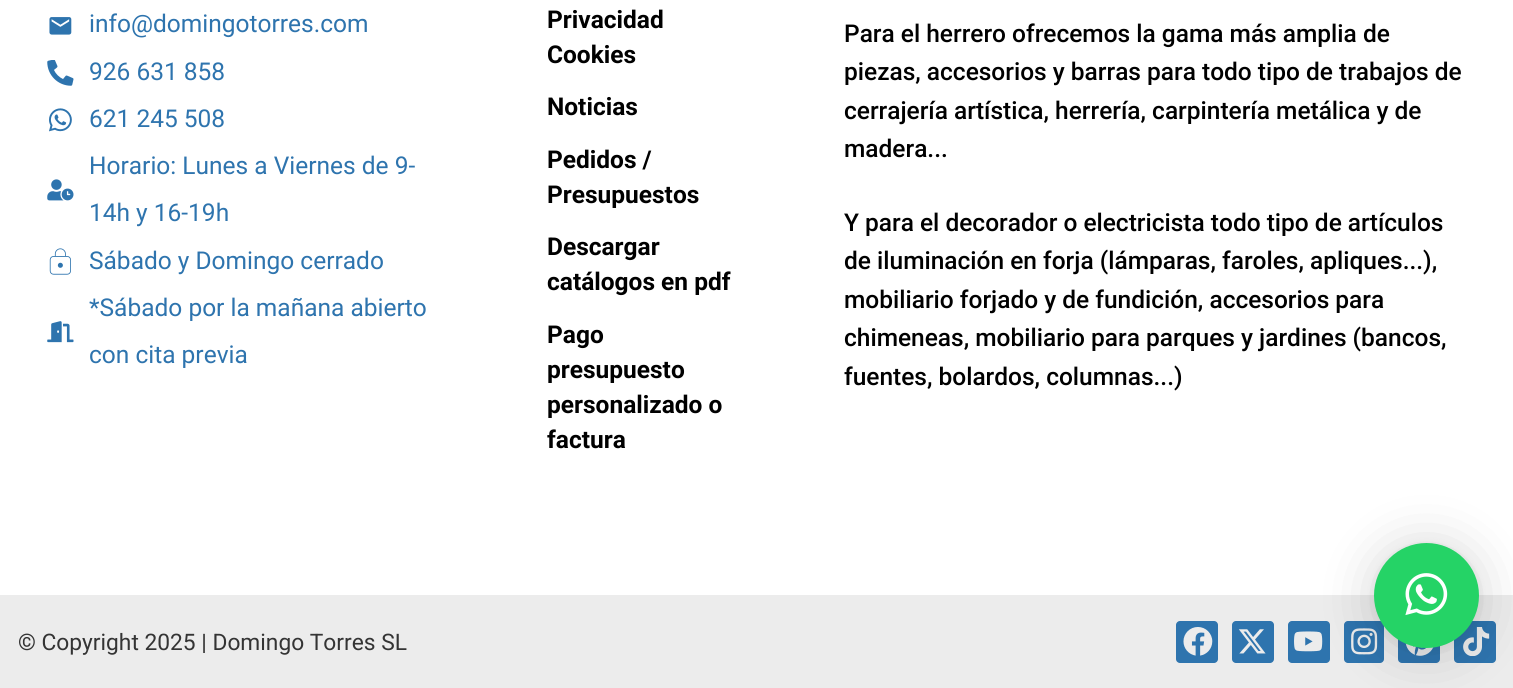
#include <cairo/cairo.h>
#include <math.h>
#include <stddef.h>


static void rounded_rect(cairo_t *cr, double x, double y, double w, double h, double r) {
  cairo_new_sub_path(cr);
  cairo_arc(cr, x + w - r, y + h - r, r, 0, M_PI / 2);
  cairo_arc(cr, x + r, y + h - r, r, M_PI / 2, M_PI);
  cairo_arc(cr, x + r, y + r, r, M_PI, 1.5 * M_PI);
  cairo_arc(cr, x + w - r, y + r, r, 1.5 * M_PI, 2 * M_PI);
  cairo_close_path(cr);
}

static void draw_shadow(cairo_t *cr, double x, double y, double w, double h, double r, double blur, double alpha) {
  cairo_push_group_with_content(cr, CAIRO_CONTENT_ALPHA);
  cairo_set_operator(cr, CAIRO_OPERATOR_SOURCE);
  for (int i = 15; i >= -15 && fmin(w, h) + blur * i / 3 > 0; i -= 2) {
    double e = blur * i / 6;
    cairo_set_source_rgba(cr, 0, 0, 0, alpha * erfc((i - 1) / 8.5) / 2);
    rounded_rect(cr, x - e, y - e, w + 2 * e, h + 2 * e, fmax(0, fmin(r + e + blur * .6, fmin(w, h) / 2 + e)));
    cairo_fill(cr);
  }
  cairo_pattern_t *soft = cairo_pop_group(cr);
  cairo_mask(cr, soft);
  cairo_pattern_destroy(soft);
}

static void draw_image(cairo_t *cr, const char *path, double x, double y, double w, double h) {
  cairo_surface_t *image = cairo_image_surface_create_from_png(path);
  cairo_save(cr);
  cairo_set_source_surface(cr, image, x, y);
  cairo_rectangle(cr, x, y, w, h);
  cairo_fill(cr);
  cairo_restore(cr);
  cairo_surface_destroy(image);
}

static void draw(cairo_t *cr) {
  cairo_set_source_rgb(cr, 1, 1, 1);
  cairo_paint(cr);
  draw_image(cr, "images/1.png", 49, 17, 23, 18);
  draw_image(cr, "images/2.png", 47, 60, 27, 26);
  draw_image(cr, "images/3.png", 49, 108, 23, 24);
  draw_image(cr, "images/4.png", 47, 179, 27, 22);
  draw_image(cr, "images/5.png", 49, 248, 22, 27);
  draw_image(cr, "images/6.png", 47, 321, 27, 22);
  cairo_set_source_rgb(cr, 236 / 255.0, 236 / 255.0, 236 / 255.0);
  cairo_rectangle(cr, 0, 595, 1513, 93);
  cairo_fill(cr);
  cairo_set_source_rgb(cr, 46 / 255.0, 116 / 255.0, 174 / 255.0);
  rounded_rect(cr, 1176, 621, 42, 42, 4);
  cairo_fill(cr);
  draw_image(cr, "images/7.png", 1183, 627, 30, 29);
  rounded_rect(cr, 1232, 621, 42, 42, 4);
  cairo_fill(cr);
  draw_image(cr, "images/8.png", 1238, 629, 28, 25);
  rounded_rect(cr, 1288, 621, 42, 42, 4);
  cairo_fill(cr);
  draw_image(cr, "images/9.png", 1294, 631, 29, 21);
  rounded_rect(cr, 1344, 621, 40, 42, 4);
  cairo_fill(cr);
  draw_image(cr, "images/10.png", 1351, 628, 27, 27);
  rounded_rect(cr, 1398, 621, 42, 42, 4);
  cairo_fill(cr);
  draw_image(cr, "images/11.png", 1405, 643, 29, 13);
  rounded_rect(cr, 1454, 621, 42, 42, 4);
  cairo_fill(cr);
  draw_image(cr, "images/12.png", 1463, 627, 27, 29);
  cairo_set_source_rgb(cr, 0, 0, 0);
  draw_shadow(cr, 1374, 546, 105, 105, 52.5, 28, 0.16);
  draw_shadow(cr, 1374, 544, 105, 105, 52.5, 5, 0.06);
  cairo_set_source_rgb(cr, 37 / 255.0, 211 / 255.0, 102 / 255.0);
  cairo_arc(cr, 1426.5, 595.5, 52.5, 0, 2 * M_PI);
  cairo_fill(cr);
  draw_image(cr, "images/13.png", 1405, 573, 43, 43);
  cairo_select_font_face(cr, "Roboto", CAIRO_FONT_SLANT_NORMAL, CAIRO_FONT_WEIGHT_NORMAL);
  cairo_set_font_size(cr, 24.5);
  cairo_set_source_rgb(cr, 46 / 255.0, 116 / 255.0, 174 / 255.0);
  cairo_move_to(cr, 89, 32);
  cairo_show_text(cr, "info@domingotorres.com");
  cairo_move_to(cr, 89, 80);
  cairo_show_text(cr, "926 631 858");
  cairo_move_to(cr, 89, 127);
  cairo_show_text(cr, "621 245 508");
  cairo_move_to(cr, 89, 174);
  cairo_show_text(cr, "Horario: Lunes a Viernes de 9-");
  cairo_move_to(cr, 89, 221);
  cairo_show_text(cr, "14h y 16-19h");
  cairo_move_to(cr, 89, 269);
  cairo_show_text(cr, "Sábado y Domingo cerrado");
  cairo_move_to(cr, 89, 316);
  cairo_show_text(cr, "*Sábado por la mañana abierto");
  cairo_move_to(cr, 89, 363);
  cairo_show_text(cr, "con cita previa");
  cairo_select_font_face(cr, "Roboto", CAIRO_FONT_SLANT_NORMAL, CAIRO_FONT_WEIGHT_BOLD);
  cairo_set_source_rgb(cr, 0, 0, 0);
  cairo_move_to(cr, 547, 28);
  cairo_show_text(cr, "Privacidad");
  cairo_move_to(cr, 547, 63);
  cairo_show_text(cr, "Cookies");
  cairo_move_to(cr, 547, 115);
  cairo_show_text(cr, "Noticias");
  cairo_move_to(cr, 547, 168);
  cairo_show_text(cr, "Pedidos /");
  cairo_move_to(cr, 547, 203);
  cairo_show_text(cr, "Presupuestos");
  cairo_move_to(cr, 547, 255);
  cairo_show_text(cr, "Descargar");
  cairo_move_to(cr, 547, 290);
  cairo_show_text(cr, "catálogos en pdf");
  cairo_move_to(cr, 547, 343);
  cairo_show_text(cr, "Pago");
  cairo_move_to(cr, 547, 378);
  cairo_show_text(cr, "presupuesto");
  cairo_move_to(cr, 547, 413);
  cairo_show_text(cr, "personalizado o");
  cairo_move_to(cr, 547, 448);
  cairo_show_text(cr, "factura");
  cairo_select_font_face(cr, "Roboto Medium", CAIRO_FONT_SLANT_NORMAL, CAIRO_FONT_WEIGHT_NORMAL);
  cairo_move_to(cr, 844, 42);
  cairo_show_text(cr, "Para el herrero ofrecemos la gama más amplia de");
  cairo_move_to(cr, 844, 80);
  cairo_show_text(cr, "piezas, accesorios y barras para todo tipo de trabajos de");
  cairo_move_to(cr, 844, 119);
  cairo_show_text(cr, "cerrajería artística, herrería, carpintería metálica y de");
  cairo_move_to(cr, 844, 157);
  cairo_show_text(cr, "madera...");
  cairo_move_to(cr, 844, 231);
  cairo_show_text(cr, "Y para el decorador o electricista todo tipo de artículos");
  cairo_move_to(cr, 844, 269);
  cairo_show_text(cr, "de iluminación en forja (lámparas, faroles, apliques...),");
  cairo_move_to(cr, 844, 308);
  cairo_show_text(cr, "mobiliario forjado y de fundición, accesorios para");
  cairo_move_to(cr, 844, 346);
  cairo_show_text(cr, "chimeneas, mobiliario para parques y jardines (bancos,");
  cairo_move_to(cr, 844, 385);
  cairo_show_text(cr, "fuentes, bolardos, columnas...)");
  cairo_select_font_face(cr, "Roboto", CAIRO_FONT_SLANT_NORMAL, CAIRO_FONT_WEIGHT_NORMAL);
  cairo_set_font_size(cr, 22.75);
  cairo_set_source_rgb(cr, 52 / 255.0, 52 / 255.0, 52 / 255.0);
  cairo_move_to(cr, 18, 650);
  cairo_show_text(cr, "© Copyright 2025 | Domingo Torres SL");
}

int main(void) {
  cairo_surface_t *surface = cairo_image_surface_create(CAIRO_FORMAT_RGB24, 1513, 688);
  cairo_t *cr = cairo_create(surface);
  cairo_font_options_t *options = cairo_font_options_create();
  cairo_font_options_set_hint_metrics(options, CAIRO_HINT_METRICS_OFF);
  cairo_font_options_set_hint_style(options, CAIRO_HINT_STYLE_NONE);
  cairo_set_font_options(cr, options);
  cairo_set_miter_limit(cr, 4);
  draw(cr);
  cairo_surface_write_to_png(surface, "out.png");
  cairo_font_options_destroy(options);
  cairo_destroy(cr);
  cairo_surface_destroy(surface);
  return 0;
}
